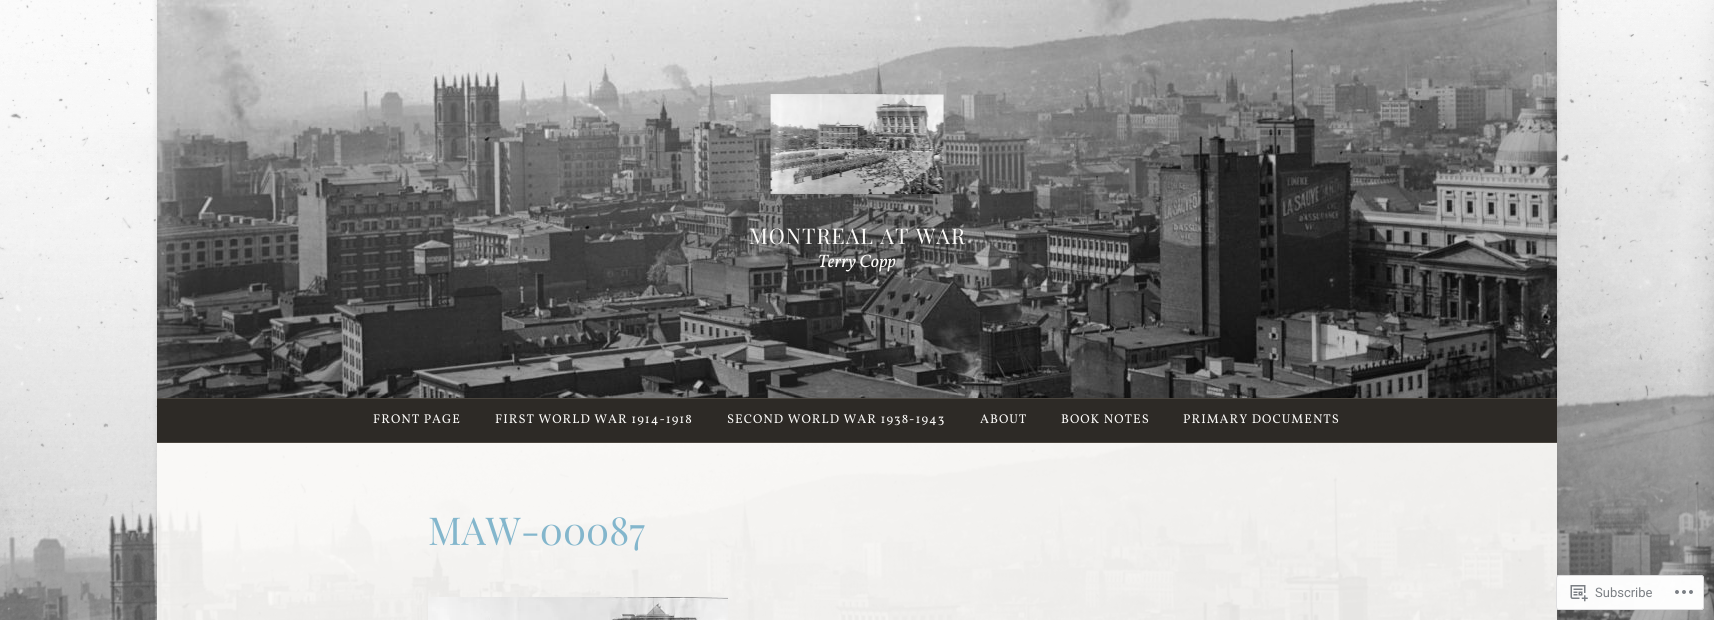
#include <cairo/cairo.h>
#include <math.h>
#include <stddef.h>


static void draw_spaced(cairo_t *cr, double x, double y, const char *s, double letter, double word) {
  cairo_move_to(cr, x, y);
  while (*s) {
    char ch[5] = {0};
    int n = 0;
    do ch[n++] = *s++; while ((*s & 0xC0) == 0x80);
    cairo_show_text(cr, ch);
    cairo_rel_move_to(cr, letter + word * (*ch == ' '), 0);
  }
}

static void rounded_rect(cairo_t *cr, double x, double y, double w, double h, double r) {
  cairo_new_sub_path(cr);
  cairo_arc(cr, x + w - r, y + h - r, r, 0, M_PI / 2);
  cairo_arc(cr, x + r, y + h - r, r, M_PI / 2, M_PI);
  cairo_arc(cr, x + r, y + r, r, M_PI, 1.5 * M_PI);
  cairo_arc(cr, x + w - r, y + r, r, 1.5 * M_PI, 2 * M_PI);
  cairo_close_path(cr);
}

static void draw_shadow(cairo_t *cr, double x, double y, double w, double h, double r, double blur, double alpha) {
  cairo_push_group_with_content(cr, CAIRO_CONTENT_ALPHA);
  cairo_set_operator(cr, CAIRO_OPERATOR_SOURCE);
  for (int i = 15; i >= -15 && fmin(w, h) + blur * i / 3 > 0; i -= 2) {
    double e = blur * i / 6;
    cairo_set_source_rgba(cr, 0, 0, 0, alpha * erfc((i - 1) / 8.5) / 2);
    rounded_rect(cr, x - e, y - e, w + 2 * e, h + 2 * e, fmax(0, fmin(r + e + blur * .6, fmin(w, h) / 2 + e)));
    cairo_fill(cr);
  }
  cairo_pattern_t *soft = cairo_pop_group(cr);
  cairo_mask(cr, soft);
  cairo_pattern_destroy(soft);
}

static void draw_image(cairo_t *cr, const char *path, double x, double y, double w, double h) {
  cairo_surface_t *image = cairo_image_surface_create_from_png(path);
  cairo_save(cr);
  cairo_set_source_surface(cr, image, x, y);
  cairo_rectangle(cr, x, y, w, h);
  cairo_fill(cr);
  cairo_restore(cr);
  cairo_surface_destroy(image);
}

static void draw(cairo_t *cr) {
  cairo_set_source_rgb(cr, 1, 1, 1);
  cairo_paint(cr);
  draw_image(cr, "images/1.png", 0, 0, 1714, 620);
  cairo_save(cr);
  cairo_set_fill_rule(cr, CAIRO_FILL_RULE_EVEN_ODD);
  cairo_new_path(cr);
  cairo_move_to(cr, 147, 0);
  cairo_line_to(cr, 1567, 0);
  cairo_line_to(cr, 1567, 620);
  cairo_line_to(cr, 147, 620);
  cairo_close_path(cr);
  cairo_move_to(cr, 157, 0);
  cairo_line_to(cr, 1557, 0);
  cairo_line_to(cr, 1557, 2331);
  cairo_line_to(cr, 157, 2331);
  cairo_close_path(cr);
  cairo_clip(cr);
  cairo_set_source_rgb(cr, 0, 0, 0);
  draw_shadow(cr, 157, 0, 1400, 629, 0, 3, 0.1);
  cairo_restore(cr);
  cairo_set_source_rgba(cr, 252 / 255.0, 251 / 255.0, 249 / 255.0, 0.9);
  cairo_rectangle(cr, 157, 443, 1400, 177);
  cairo_fill(cr);
  draw_image(cr, "images/2.png", 157, 0, 1400, 398);
  draw_image(cr, "images/3.png", 770, 94, 174, 101);
  cairo_set_source_rgb(cr, 45 / 255.0, 42 / 255.0, 38 / 255.0);
  cairo_rectangle(cr, 157, 399, 1400, 43);
  cairo_fill(cr);
  cairo_set_source_rgb(cr, 73 / 255.0, 68 / 255.0, 61 / 255.0);
  cairo_rectangle(cr, 157, 398, 1400, 1);
  cairo_fill(cr);
  cairo_rectangle(cr, 157, 442, 1400, 1);
  cairo_fill(cr);
  draw_image(cr, "images/4.png", 428, 597, 300, 23);
  cairo_set_source_rgba(cr, 1, 1, 1, 0.98);
  rounded_rect(cr, 1556, 575, 148, 35, 3);
  cairo_fill(cr);
  rounded_rect(cr, 1556.5, 575.5, 147, 34, 2.5);
  cairo_set_source_rgba(cr, 220 / 255.0, 220 / 255.0, 222 / 255.0, 0.98);
  cairo_set_line_width(cr, 1);
  cairo_stroke(cr);
  draw_image(cr, "images/5.png", 1570, 585, 18, 17);
  draw_image(cr, "images/6.png", 1675, 590, 18, 4);
  cairo_select_font_face(cr, "Playfair Display", CAIRO_FONT_SLANT_NORMAL, CAIRO_FONT_WEIGHT_NORMAL);
  cairo_set_font_size(cr, 21.6);
  cairo_set_source_rgb(cr, 252 / 255.0, 251 / 255.0, 249 / 255.0);
  draw_spaced(cr, 749, 244, "MONTREAL AT WAR", 1, 0);
  cairo_select_font_face(cr, "Vollkorn", CAIRO_FONT_SLANT_ITALIC, CAIRO_FONT_WEIGHT_NORMAL);
  cairo_set_font_size(cr, 18);
  cairo_move_to(cr, 818, 267);
  cairo_show_text(cr, "Terry Copp");
  cairo_select_font_face(cr, "Vollkorn", CAIRO_FONT_SLANT_NORMAL, CAIRO_FONT_WEIGHT_NORMAL);
  cairo_set_font_size(cr, 12.75);
  draw_spaced(cr, 373, 423, "FRONT PAGE", 1, 0);
  draw_spaced(cr, 495, 423, "FIRST WORLD WAR 1914-1918", 1, 0);
  draw_spaced(cr, 727, 423, "SECOND WORLD WAR 1938-1943", 1, 0);
  draw_spaced(cr, 980, 423, "ABOUT", 1, 0);
  draw_spaced(cr, 1061, 423, "BOOK NOTES", 1, 0);
  draw_spaced(cr, 1183, 423, "PRIMARY DOCUMENTS", 1, 0);
  cairo_select_font_face(cr, "Playfair Display", CAIRO_FONT_SLANT_NORMAL, CAIRO_FONT_WEIGHT_NORMAL);
  cairo_set_font_size(cr, 38.5);
  cairo_set_source_rgb(cr, 131 / 255.0, 182 / 255.0, 204 / 255.0);
  cairo_move_to(cr, 428, 545);
  cairo_show_text(cr, "MAW-00087");
  cairo_select_font_face(cr, "Roboto", CAIRO_FONT_SLANT_NORMAL, CAIRO_FONT_WEIGHT_NORMAL);
  cairo_set_font_size(cr, 13);
  cairo_set_source_rgb(cr, 123 / 255.0, 127 / 255.0, 132 / 255.0);
  cairo_move_to(cr, 1595, 597);
  cairo_show_text(cr, "Subscribe");
}

int main(void) {
  cairo_surface_t *surface = cairo_image_surface_create(CAIRO_FORMAT_RGB24, 1714, 620);
  cairo_t *cr = cairo_create(surface);
  cairo_font_options_t *options = cairo_font_options_create();
  cairo_font_options_set_hint_metrics(options, CAIRO_HINT_METRICS_OFF);
  cairo_font_options_set_hint_style(options, CAIRO_HINT_STYLE_NONE);
  cairo_set_font_options(cr, options);
  cairo_set_miter_limit(cr, 4);
  draw(cr);
  cairo_surface_write_to_png(surface, "out.png");
  cairo_font_options_destroy(options);
  cairo_destroy(cr);
  cairo_surface_destroy(surface);
  return 0;
}
